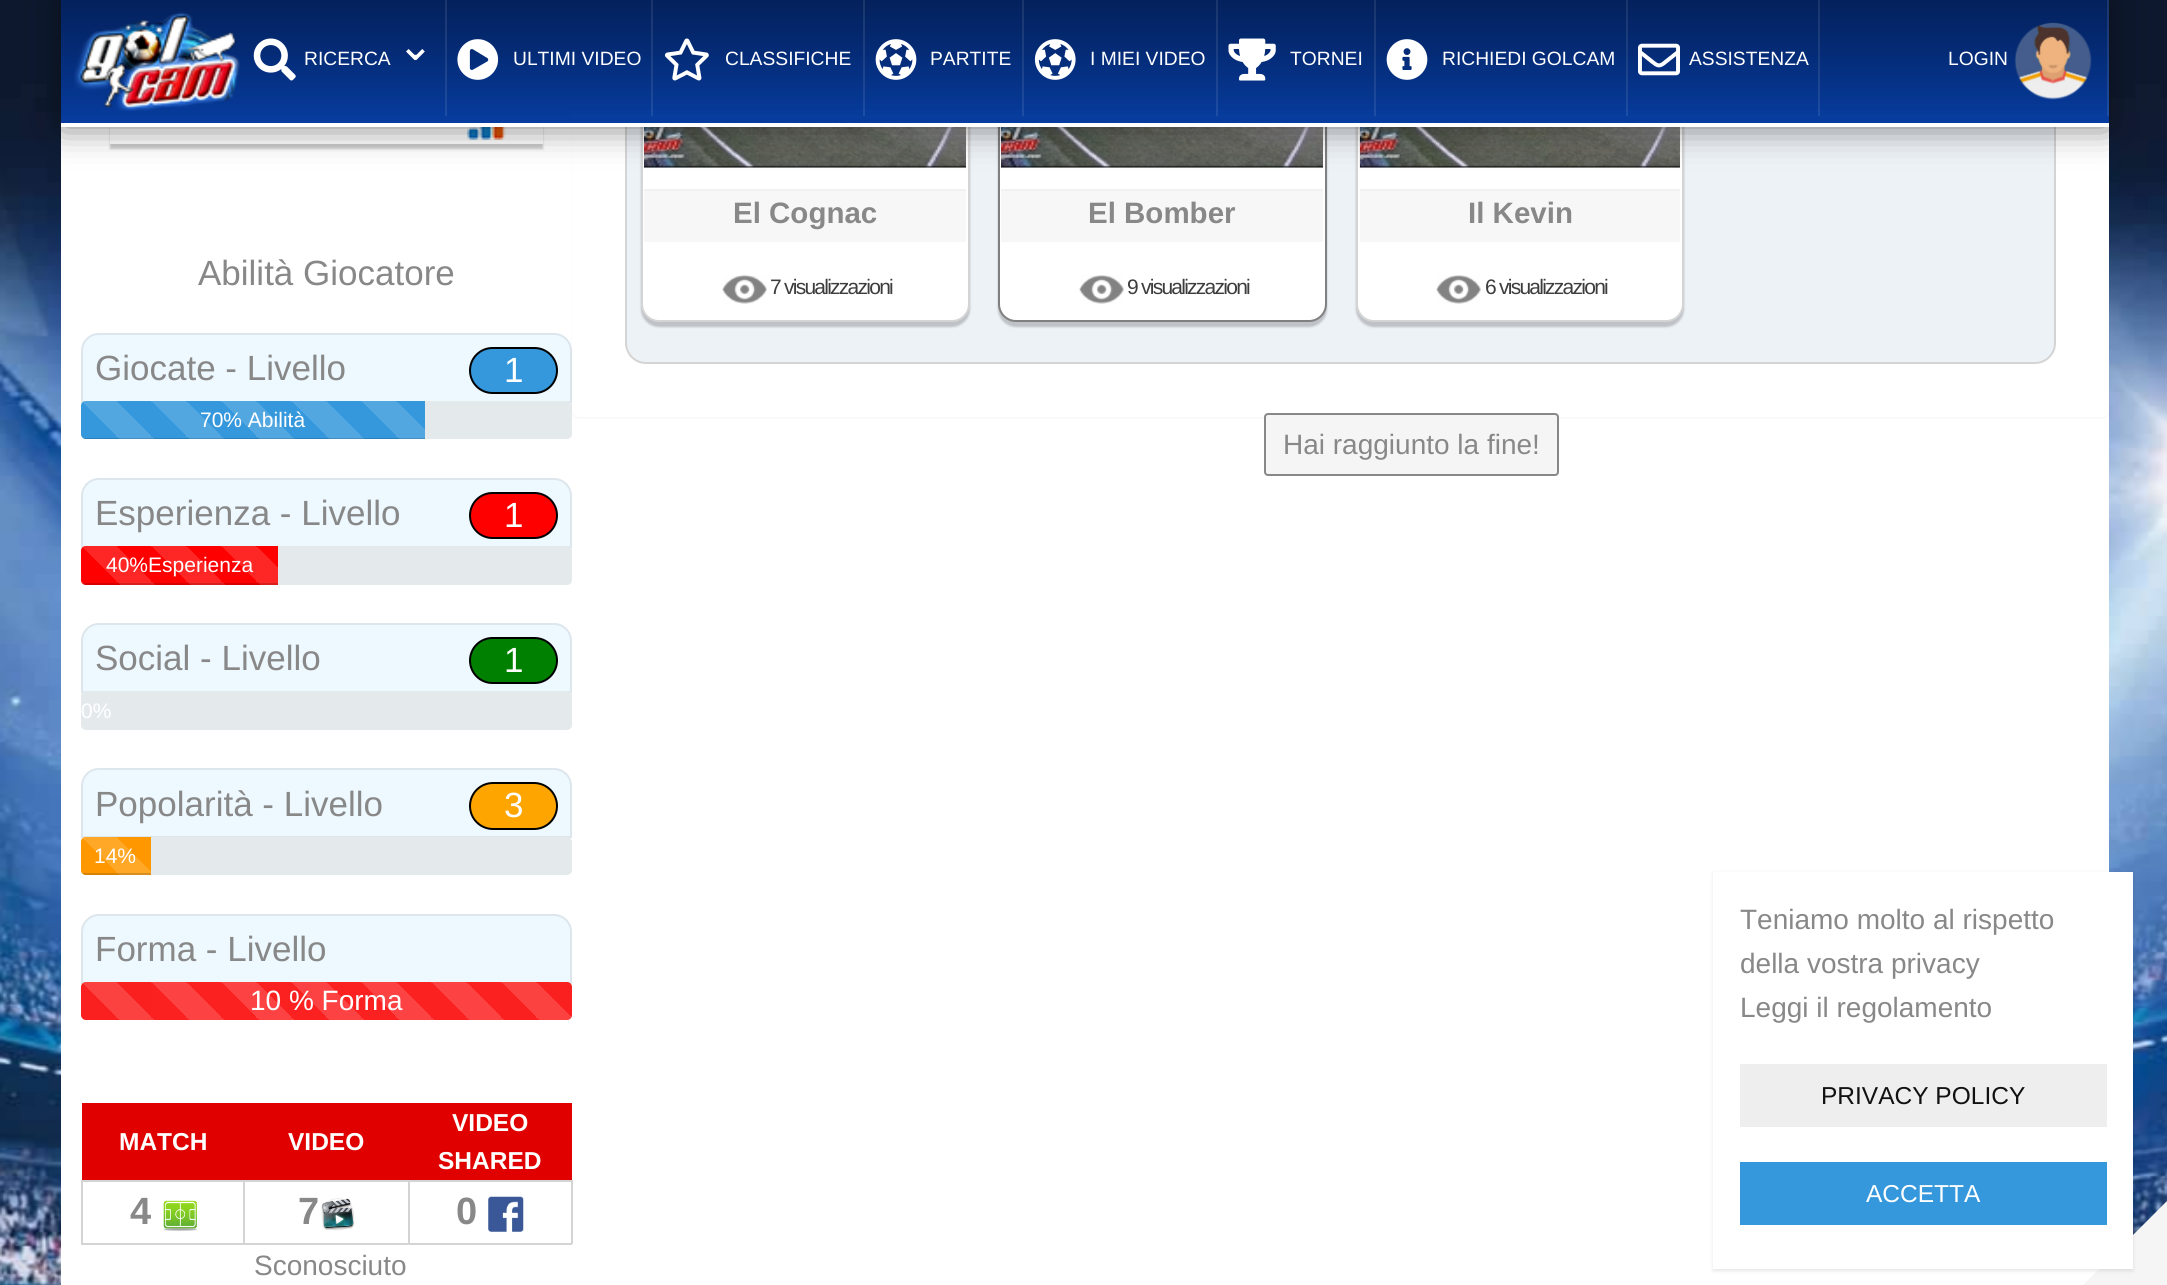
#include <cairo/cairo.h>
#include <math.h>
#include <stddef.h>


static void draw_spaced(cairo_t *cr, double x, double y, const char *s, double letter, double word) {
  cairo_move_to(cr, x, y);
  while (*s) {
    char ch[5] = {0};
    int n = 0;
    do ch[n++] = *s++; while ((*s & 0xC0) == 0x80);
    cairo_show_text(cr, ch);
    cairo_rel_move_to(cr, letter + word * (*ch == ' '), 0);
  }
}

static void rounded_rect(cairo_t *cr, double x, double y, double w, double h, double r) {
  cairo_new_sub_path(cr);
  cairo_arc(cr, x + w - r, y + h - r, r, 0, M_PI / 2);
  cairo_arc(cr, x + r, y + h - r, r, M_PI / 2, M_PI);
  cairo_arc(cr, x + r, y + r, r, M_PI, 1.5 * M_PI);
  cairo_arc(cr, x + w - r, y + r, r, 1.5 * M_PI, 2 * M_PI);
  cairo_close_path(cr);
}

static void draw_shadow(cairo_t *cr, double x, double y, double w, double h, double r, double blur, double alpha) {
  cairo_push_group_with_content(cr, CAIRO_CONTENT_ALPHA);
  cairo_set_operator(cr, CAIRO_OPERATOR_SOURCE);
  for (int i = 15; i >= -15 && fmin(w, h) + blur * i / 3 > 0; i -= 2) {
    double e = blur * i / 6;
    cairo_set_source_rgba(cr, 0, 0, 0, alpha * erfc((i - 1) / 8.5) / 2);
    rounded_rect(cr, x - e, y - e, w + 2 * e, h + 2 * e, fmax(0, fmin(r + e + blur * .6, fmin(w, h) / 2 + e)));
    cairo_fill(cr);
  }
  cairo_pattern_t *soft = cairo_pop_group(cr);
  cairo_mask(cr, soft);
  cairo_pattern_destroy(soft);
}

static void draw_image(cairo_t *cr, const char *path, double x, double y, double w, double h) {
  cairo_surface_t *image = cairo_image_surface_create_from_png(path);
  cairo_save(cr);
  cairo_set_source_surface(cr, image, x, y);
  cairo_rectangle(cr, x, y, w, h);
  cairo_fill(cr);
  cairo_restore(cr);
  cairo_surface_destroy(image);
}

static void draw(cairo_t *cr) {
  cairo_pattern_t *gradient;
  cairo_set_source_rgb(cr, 1, 1, 1);
  cairo_paint(cr);
  draw_image(cr, "images/1.png", 0, 0, 2167, 1285);
  cairo_set_source_rgb(cr, 1, 1, 1);
  cairo_rectangle(cr, 61, 127, 2048, 1158);
  cairo_fill(cr);
  cairo_set_source_rgb(cr, 0, 0, 0);
  draw_shadow(cr, 110, 96, 433, 53, 0, 1, 0.2);
  cairo_set_source_rgb(cr, 237 / 255.0, 248 / 255.0, 1);
  cairo_new_path(cr);
  cairo_move_to(cr, 99, 333);
  cairo_line_to(cr, 554, 333);
  cairo_curve_to(cr, 564, 333, 572, 341, 572, 351);
  cairo_line_to(cr, 572, 403);
  cairo_line_to(cr, 81, 403);
  cairo_line_to(cr, 81, 351);
  cairo_curve_to(cr, 81, 341, 89, 333, 99, 333);
  cairo_close_path(cr);
  cairo_fill(cr);
  cairo_new_path(cr);
  cairo_move_to(cr, 99, 334);
  cairo_line_to(cr, 554, 334);
  cairo_curve_to(cr, 563.5, 334, 571, 341.5, 571, 351);
  cairo_line_to(cr, 571, 402);
  cairo_line_to(cr, 82, 402);
  cairo_line_to(cr, 82, 351);
  cairo_curve_to(cr, 82, 341.5, 89.5, 334, 99, 334);
  cairo_close_path(cr);
  cairo_set_source_rgba(cr, 128 / 255.0, 128 / 255.0, 128 / 255.0, 0.15);
  cairo_stroke(cr);
  cairo_set_source_rgb(cr, 228 / 255.0, 234 / 255.0, 236 / 255.0);
  rounded_rect(cr, 81, 401, 491, 38, 5);
  cairo_fill(cr);
  cairo_set_source_rgb(cr, 0, 0, 0);
  draw_shadow(cr, 572, -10, 1537, 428, 7, 1, 0.05);
  cairo_set_source_rgb(cr, 1, 1, 1);
  rounded_rect(cr, 572, -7, 1537, 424, 7);
  cairo_fill(cr);
  cairo_set_source_rgb(cr, 237 / 255.0, 242 / 255.0, 247 / 255.0);
  cairo_new_path(cr);
  cairo_move_to(cr, 626, -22);
  cairo_line_to(cr, 2055, -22);
  cairo_line_to(cr, 2055, 343);
  cairo_curve_to(cr, 2055, 354, 2046, 363, 2035, 363);
  cairo_line_to(cr, 646, 363);
  cairo_curve_to(cr, 635, 363, 626, 354, 626, 343);
  cairo_close_path(cr);
  cairo_fill_preserve(cr);
  cairo_set_source_rgb(cr, 212 / 255.0, 212 / 255.0, 212 / 255.0);
  cairo_stroke(cr);
  cairo_set_source_rgb(cr, 0, 0, 0);
  draw_shadow(cr, 641, -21, 329, 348, 18, 1, 0.2);
  cairo_set_source_rgb(cr, 1, 1, 1);
  rounded_rect(cr, 642, -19, 327, 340, 17);
  cairo_fill_preserve(cr);
  cairo_set_source_rgb(cr, 212 / 255.0, 212 / 255.0, 212 / 255.0);
  cairo_stroke(cr);
  cairo_set_source_rgb(cr, 0, 0, 0);
  draw_shadow(cr, 998, -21, 329, 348, 18, 1, 0.2);
  cairo_set_source_rgb(cr, 1, 1, 1);
  rounded_rect(cr, 999, -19, 327, 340, 17);
  cairo_fill_preserve(cr);
  cairo_set_source_rgb(cr, 128 / 255.0, 128 / 255.0, 128 / 255.0);
  cairo_stroke(cr);
  cairo_set_source_rgb(cr, 0, 0, 0);
  draw_shadow(cr, 1356, -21, 328, 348, 18, 1, 0.2);
  cairo_set_source_rgb(cr, 1, 1, 1);
  rounded_rect(cr, 1357, -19, 326, 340, 17);
  cairo_fill_preserve(cr);
  cairo_set_source_rgb(cr, 212 / 255.0, 212 / 255.0, 212 / 255.0);
  cairo_stroke(cr);
  cairo_set_source_rgb(cr, 1, 1, 1);
  cairo_rectangle(cr, 61, 0, 1995, 109);
  cairo_fill(cr);
  cairo_rectangle(cr, 110, 127, 433, 17);
  cairo_fill(cr);
  draw_image(cr, "images/12.png", 467, 127, 43, 13);
  draw_image(cr, "images/16.png", 644, 127, 322, 41);
  draw_image(cr, "images/18.png", 1001, 127, 322, 41);
  draw_image(cr, "images/19.png", 1359, 127, 321, 41);
  cairo_save(cr);
  cairo_set_fill_rule(cr, CAIRO_FILL_RULE_EVEN_ODD);
  cairo_new_path(cr);
  cairo_move_to(cr, 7, 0);
  cairo_line_to(cr, 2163, 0);
  cairo_line_to(cr, 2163, 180);
  cairo_line_to(cr, 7, 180);
  cairo_close_path(cr);
  cairo_move_to(cr, 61, 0);
  cairo_line_to(cr, 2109, 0);
  cairo_line_to(cr, 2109, 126);
  cairo_line_to(cr, 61, 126);
  cairo_close_path(cr);
  cairo_clip(cr);
  cairo_set_source_rgb(cr, 10 / 255.0, 8 / 255.0, 8 / 255.0);
  draw_shadow(cr, 61, 0, 2048, 126, 0, 17.5, 0.57);
  cairo_restore(cr);
  gradient = cairo_pattern_create_linear(1085, 0, 1085, 123);
  cairo_pattern_add_color_stop_rgba(gradient, 0, 72 / 255.0, 131 / 255.0, 249 / 255.0, 0.95);
  cairo_pattern_add_color_stop_rgba(gradient, 1, 20 / 255.0, 16 / 255.0, 86 / 255.0, 1);
  cairo_set_source(cr, gradient);
  cairo_pattern_destroy(gradient);
  cairo_rectangle(cr, 61, 0, 2048, 109);
  cairo_fill(cr);
  cairo_set_source_rgb(cr, 1, 1, 1);
  cairo_rectangle(cr, 61, 123, 2048, 4);
  cairo_fill(cr);
  gradient = cairo_pattern_create_linear(1085, 0, 1085, 123);
  cairo_pattern_add_color_stop_rgba(gradient, 0, 0, 28 / 255.0, 84 / 255.0, 0.95);
  cairo_pattern_add_color_stop_rgba(gradient, 1, 7 / 255.0, 61 / 255.0, 160 / 255.0, 1);
  cairo_set_source(cr, gradient);
  cairo_pattern_destroy(gradient);
  cairo_rectangle(cr, 61, 0, 2048, 123);
  cairo_fill(cr);
  draw_image(cr, "images/2.png", 74, 12, 166, 99);
  cairo_set_source_rgba(cr, 1, 1, 1, 0.09);
  cairo_rectangle(cr, 445, 0, 2, 116);
  cairo_fill(cr);
  draw_image(cr, "images/3.png", 253, 38, 43, 43);
  cairo_rectangle(cr, 651, 0, 2, 116);
  cairo_fill(cr);
  draw_image(cr, "images/4.png", 457, 39, 42, 41);
  cairo_rectangle(cr, 863, 0, 2, 116);
  cairo_fill(cr);
  draw_image(cr, "images/5.png", 664, 38, 45, 43);
  cairo_rectangle(cr, 1022, 0, 2, 116);
  cairo_fill(cr);
  draw_image(cr, "images/6.png", 875, 39, 42, 41);
  cairo_rectangle(cr, 1216, 0, 2, 116);
  cairo_fill(cr);
  draw_image(cr, "images/7.png", 1034, 39, 42, 41);
  cairo_rectangle(cr, 1374, 0, 2, 116);
  cairo_fill(cr);
  draw_image(cr, "images/8.png", 1228, 38, 48, 43);
  cairo_rectangle(cr, 1626, 0, 2, 116);
  cairo_fill(cr);
  draw_image(cr, "images/9.png", 1386, 39, 42, 41);
  cairo_rectangle(cr, 1818, 0, 2, 116);
  cairo_fill(cr);
  draw_image(cr, "images/10.png", 1638, 43, 42, 33);
  cairo_rectangle(cr, 2107, 0, 2, 116);
  cairo_fill(cr);
  draw_image(cr, "images/11.png", 2014, 22, 78, 78);
  cairo_set_source_rgb(cr, 53 / 255.0, 152 / 255.0, 220 / 255.0);
  rounded_rect(cr, 470, 348, 87, 45, 22.5);
  cairo_fill_preserve(cr);
  cairo_set_source_rgb(cr, 0, 0, 0);
  cairo_stroke(cr);
  cairo_set_source_rgb(cr, 53 / 255.0, 152 / 255.0, 220 / 255.0);
  cairo_new_path(cr);
  cairo_move_to(cr, 86, 401);
  cairo_line_to(cr, 425, 401);
  cairo_line_to(cr, 425, 439);
  cairo_line_to(cr, 86, 439);
  cairo_curve_to(cr, 83, 439, 81, 437, 81, 434);
  cairo_line_to(cr, 81, 406);
  cairo_curve_to(cr, 81, 403, 83, 401, 86, 401);
  cairo_close_path(cr);
  cairo_fill(cr);
  gradient = cairo_pattern_create_linear(81, 471, 151, 401);
  cairo_pattern_add_color_stop_rgba(gradient, 0.25, 1, 1, 1, 0.15);
  cairo_pattern_add_color_stop_rgba(gradient, 0.25, 1, 1, 1, 0);
  cairo_pattern_add_color_stop_rgba(gradient, 0.5, 1, 1, 1, 0);
  cairo_pattern_add_color_stop_rgba(gradient, 0.5, 1, 1, 1, 0.15);
  cairo_pattern_add_color_stop_rgba(gradient, 0.75, 1, 1, 1, 0.15);
  cairo_pattern_add_color_stop_rgba(gradient, 0.75, 1, 1, 1, 0);
  cairo_pattern_add_color_stop_rgba(gradient, 1, 0, 0, 0, 0);
  cairo_set_source(cr, gradient);
  cairo_pattern_destroy(gradient);
  cairo_new_path(cr);
  cairo_move_to(cr, 86, 401);
  cairo_line_to(cr, 151, 401);
  cairo_line_to(cr, 151, 439);
  cairo_line_to(cr, 86, 439);
  cairo_curve_to(cr, 83, 439, 81, 437, 81, 434);
  cairo_line_to(cr, 81, 406);
  cairo_curve_to(cr, 81, 403, 83, 401, 86, 401);
  cairo_close_path(cr);
  cairo_fill(cr);
  gradient = cairo_pattern_create_linear(151, 471, 221, 401);
  cairo_pattern_add_color_stop_rgba(gradient, 0.25, 83 / 255.0, 167 / 255.0, 225 / 255.0, 1);
  cairo_pattern_add_color_stop_rgba(gradient, 0.25, 53 / 255.0, 152 / 255.0, 220 / 255.0, 1);
  cairo_pattern_add_color_stop_rgba(gradient, 0.5, 53 / 255.0, 152 / 255.0, 220 / 255.0, 1);
  cairo_pattern_add_color_stop_rgba(gradient, 0.5, 83 / 255.0, 167 / 255.0, 225 / 255.0, 1);
  cairo_pattern_add_color_stop_rgba(gradient, 0.75, 83 / 255.0, 167 / 255.0, 225 / 255.0, 1);
  cairo_pattern_add_color_stop_rgba(gradient, 0.75, 53 / 255.0, 152 / 255.0, 220 / 255.0, 1);
  cairo_pattern_add_color_stop_rgba(gradient, 1, 53 / 255.0, 152 / 255.0, 220 / 255.0, 1);
  cairo_set_source(cr, gradient);
  cairo_pattern_destroy(gradient);
  cairo_rectangle(cr, 151, 401, 70, 38);
  cairo_fill(cr);
  gradient = cairo_pattern_create_linear(221, 471, 291, 401);
  cairo_pattern_add_color_stop_rgba(gradient, 0.25, 83 / 255.0, 167 / 255.0, 225 / 255.0, 1);
  cairo_pattern_add_color_stop_rgba(gradient, 0.25, 53 / 255.0, 152 / 255.0, 220 / 255.0, 1);
  cairo_pattern_add_color_stop_rgba(gradient, 0.5, 53 / 255.0, 152 / 255.0, 220 / 255.0, 1);
  cairo_pattern_add_color_stop_rgba(gradient, 0.5, 83 / 255.0, 167 / 255.0, 225 / 255.0, 1);
  cairo_pattern_add_color_stop_rgba(gradient, 0.75, 83 / 255.0, 167 / 255.0, 225 / 255.0, 1);
  cairo_pattern_add_color_stop_rgba(gradient, 0.75, 53 / 255.0, 152 / 255.0, 220 / 255.0, 1);
  cairo_pattern_add_color_stop_rgba(gradient, 1, 53 / 255.0, 152 / 255.0, 220 / 255.0, 1);
  cairo_set_source(cr, gradient);
  cairo_pattern_destroy(gradient);
  cairo_rectangle(cr, 221, 401, 70, 38);
  cairo_fill(cr);
  gradient = cairo_pattern_create_linear(291, 471, 361, 401);
  cairo_pattern_add_color_stop_rgba(gradient, 0.25, 83 / 255.0, 167 / 255.0, 225 / 255.0, 1);
  cairo_pattern_add_color_stop_rgba(gradient, 0.25, 53 / 255.0, 152 / 255.0, 220 / 255.0, 1);
  cairo_pattern_add_color_stop_rgba(gradient, 0.5, 53 / 255.0, 152 / 255.0, 220 / 255.0, 1);
  cairo_pattern_add_color_stop_rgba(gradient, 0.5, 83 / 255.0, 167 / 255.0, 225 / 255.0, 1);
  cairo_pattern_add_color_stop_rgba(gradient, 0.75, 83 / 255.0, 167 / 255.0, 225 / 255.0, 1);
  cairo_pattern_add_color_stop_rgba(gradient, 0.75, 53 / 255.0, 152 / 255.0, 220 / 255.0, 1);
  cairo_pattern_add_color_stop_rgba(gradient, 1, 53 / 255.0, 152 / 255.0, 220 / 255.0, 1);
  cairo_set_source(cr, gradient);
  cairo_pattern_destroy(gradient);
  cairo_rectangle(cr, 291, 401, 70, 38);
  cairo_fill(cr);
  gradient = cairo_pattern_create_linear(361, 471, 431, 401);
  cairo_pattern_add_color_stop_rgba(gradient, 0.25, 83 / 255.0, 167 / 255.0, 225 / 255.0, 1);
  cairo_pattern_add_color_stop_rgba(gradient, 0.25, 53 / 255.0, 152 / 255.0, 220 / 255.0, 1);
  cairo_pattern_add_color_stop_rgba(gradient, 0.5, 53 / 255.0, 152 / 255.0, 220 / 255.0, 1);
  cairo_pattern_add_color_stop_rgba(gradient, 0.5, 83 / 255.0, 167 / 255.0, 225 / 255.0, 1);
  cairo_pattern_add_color_stop_rgba(gradient, 0.75, 83 / 255.0, 167 / 255.0, 225 / 255.0, 1);
  cairo_pattern_add_color_stop_rgba(gradient, 0.75, 53 / 255.0, 152 / 255.0, 220 / 255.0, 1);
  cairo_pattern_add_color_stop_rgba(gradient, 1, 53 / 255.0, 152 / 255.0, 220 / 255.0, 1);
  cairo_set_source(cr, gradient);
  cairo_pattern_destroy(gradient);
  cairo_rectangle(cr, 361, 401, 64, 38);
  cairo_fill(cr);
  cairo_save(cr);
  rounded_rect(cr, 81, 401, 491, 38, 5);
  cairo_clip(cr);
  cairo_set_source_rgba(cr, 0, 0, 0, 0.15);
  cairo_rectangle(cr, 81, 438, 344, 1);
  cairo_fill(cr);
  cairo_restore(cr);
  cairo_set_source_rgb(cr, 237 / 255.0, 248 / 255.0, 1);
  cairo_new_path(cr);
  cairo_move_to(cr, 99, 478);
  cairo_line_to(cr, 554, 478);
  cairo_curve_to(cr, 564, 478, 572, 486, 572, 496);
  cairo_line_to(cr, 572, 548);
  cairo_line_to(cr, 81, 548);
  cairo_line_to(cr, 81, 496);
  cairo_curve_to(cr, 81, 486, 89, 478, 99, 478);
  cairo_close_path(cr);
  cairo_fill(cr);
  cairo_new_path(cr);
  cairo_move_to(cr, 99, 479);
  cairo_line_to(cr, 554, 479);
  cairo_curve_to(cr, 563.5, 479, 571, 486.5, 571, 496);
  cairo_line_to(cr, 571, 547);
  cairo_line_to(cr, 82, 547);
  cairo_line_to(cr, 82, 496);
  cairo_curve_to(cr, 82, 486.5, 89.5, 479, 99, 479);
  cairo_close_path(cr);
  cairo_set_source_rgba(cr, 128 / 255.0, 128 / 255.0, 128 / 255.0, 0.15);
  cairo_stroke(cr);
  cairo_set_source_rgb(cr, 1, 0, 0);
  rounded_rect(cr, 470, 493, 87, 45, 22.5);
  cairo_fill_preserve(cr);
  cairo_set_source_rgb(cr, 0, 0, 0);
  cairo_stroke(cr);
  cairo_set_source_rgb(cr, 228 / 255.0, 234 / 255.0, 236 / 255.0);
  rounded_rect(cr, 81, 546, 491, 39, 5);
  cairo_fill(cr);
  cairo_set_source_rgb(cr, 1, 0, 0);
  cairo_new_path(cr);
  cairo_move_to(cr, 86, 546);
  cairo_line_to(cr, 278, 546);
  cairo_line_to(cr, 278, 585);
  cairo_line_to(cr, 86, 585);
  cairo_curve_to(cr, 83, 585, 81, 583, 81, 580);
  cairo_line_to(cr, 81, 551);
  cairo_curve_to(cr, 81, 548, 83, 546, 86, 546);
  cairo_close_path(cr);
  cairo_fill(cr);
  gradient = cairo_pattern_create_linear(81, 616, 151, 546);
  cairo_pattern_add_color_stop_rgba(gradient, 0.25, 1, 1, 1, 0.15);
  cairo_pattern_add_color_stop_rgba(gradient, 0.25, 1, 1, 1, 0);
  cairo_pattern_add_color_stop_rgba(gradient, 0.5, 1, 1, 1, 0);
  cairo_pattern_add_color_stop_rgba(gradient, 0.5, 1, 1, 1, 0.15);
  cairo_pattern_add_color_stop_rgba(gradient, 0.75, 1, 1, 1, 0.15);
  cairo_pattern_add_color_stop_rgba(gradient, 0.75, 1, 1, 1, 0);
  cairo_pattern_add_color_stop_rgba(gradient, 1, 0, 0, 0, 0);
  cairo_set_source(cr, gradient);
  cairo_pattern_destroy(gradient);
  cairo_new_path(cr);
  cairo_move_to(cr, 86, 546);
  cairo_line_to(cr, 151, 546);
  cairo_line_to(cr, 151, 585);
  cairo_line_to(cr, 86, 585);
  cairo_curve_to(cr, 83, 585, 81, 583, 81, 580);
  cairo_line_to(cr, 81, 551);
  cairo_curve_to(cr, 81, 548, 83, 546, 86, 546);
  cairo_close_path(cr);
  cairo_fill(cr);
  gradient = cairo_pattern_create_linear(151, 616, 221, 546);
  cairo_pattern_add_color_stop_rgba(gradient, 0.25, 1, 38 / 255.0, 38 / 255.0, 1);
  cairo_pattern_add_color_stop_rgba(gradient, 0.25, 1, 0, 0, 1);
  cairo_pattern_add_color_stop_rgba(gradient, 0.5, 1, 0, 0, 1);
  cairo_pattern_add_color_stop_rgba(gradient, 0.5, 1, 38 / 255.0, 38 / 255.0, 1);
  cairo_pattern_add_color_stop_rgba(gradient, 0.75, 1, 38 / 255.0, 38 / 255.0, 1);
  cairo_pattern_add_color_stop_rgba(gradient, 0.75, 1, 0, 0, 1);
  cairo_pattern_add_color_stop_rgba(gradient, 1, 1, 0, 0, 1);
  cairo_set_source(cr, gradient);
  cairo_pattern_destroy(gradient);
  cairo_rectangle(cr, 151, 546, 70, 39);
  cairo_fill(cr);
  gradient = cairo_pattern_create_linear(221, 616, 291, 546);
  cairo_pattern_add_color_stop_rgba(gradient, 0.25, 1, 38 / 255.0, 38 / 255.0, 1);
  cairo_pattern_add_color_stop_rgba(gradient, 0.25, 1, 0, 0, 1);
  cairo_pattern_add_color_stop_rgba(gradient, 0.5, 1, 0, 0, 1);
  cairo_pattern_add_color_stop_rgba(gradient, 0.5, 1, 38 / 255.0, 38 / 255.0, 1);
  cairo_pattern_add_color_stop_rgba(gradient, 0.75, 1, 38 / 255.0, 38 / 255.0, 1);
  cairo_pattern_add_color_stop_rgba(gradient, 0.75, 1, 0, 0, 1);
  cairo_pattern_add_color_stop_rgba(gradient, 1, 1, 0, 0, 1);
  cairo_set_source(cr, gradient);
  cairo_pattern_destroy(gradient);
  cairo_rectangle(cr, 221, 546, 57, 39);
  cairo_fill(cr);
  cairo_save(cr);
  rounded_rect(cr, 81, 546, 491, 39, 5);
  cairo_clip(cr);
  cairo_set_source_rgba(cr, 0, 0, 0, 0.15);
  cairo_rectangle(cr, 81, 583, 197, 2);
  cairo_fill(cr);
  cairo_restore(cr);
  cairo_set_source_rgb(cr, 237 / 255.0, 248 / 255.0, 1);
  cairo_new_path(cr);
  cairo_move_to(cr, 99, 623);
  cairo_line_to(cr, 554, 623);
  cairo_curve_to(cr, 564, 623, 572, 631, 572, 641);
  cairo_line_to(cr, 572, 693);
  cairo_line_to(cr, 81, 693);
  cairo_line_to(cr, 81, 641);
  cairo_curve_to(cr, 81, 631, 89, 623, 99, 623);
  cairo_close_path(cr);
  cairo_fill(cr);
  cairo_new_path(cr);
  cairo_move_to(cr, 99, 624);
  cairo_line_to(cr, 554, 624);
  cairo_curve_to(cr, 563.5, 624, 571, 631.5, 571, 641);
  cairo_line_to(cr, 571, 692);
  cairo_line_to(cr, 82, 692);
  cairo_line_to(cr, 82, 641);
  cairo_curve_to(cr, 82, 631.5, 89.5, 624, 99, 624);
  cairo_close_path(cr);
  cairo_set_source_rgba(cr, 128 / 255.0, 128 / 255.0, 128 / 255.0, 0.15);
  cairo_stroke(cr);
  cairo_set_source_rgb(cr, 0, 128 / 255.0, 0);
  rounded_rect(cr, 470, 638, 87, 45, 22.5);
  cairo_fill_preserve(cr);
  cairo_set_source_rgb(cr, 0, 0, 0);
  cairo_stroke(cr);
  cairo_set_source_rgb(cr, 228 / 255.0, 234 / 255.0, 236 / 255.0);
  rounded_rect(cr, 81, 691, 491, 39, 5);
  cairo_fill(cr);
  cairo_set_source_rgb(cr, 237 / 255.0, 248 / 255.0, 1);
  cairo_new_path(cr);
  cairo_move_to(cr, 99, 768);
  cairo_line_to(cr, 554, 768);
  cairo_curve_to(cr, 564, 768, 572, 776, 572, 786);
  cairo_line_to(cr, 572, 838);
  cairo_line_to(cr, 81, 838);
  cairo_line_to(cr, 81, 786);
  cairo_curve_to(cr, 81, 776, 89, 768, 99, 768);
  cairo_close_path(cr);
  cairo_fill(cr);
  cairo_new_path(cr);
  cairo_move_to(cr, 99, 769);
  cairo_line_to(cr, 554, 769);
  cairo_curve_to(cr, 563.5, 769, 571, 776.5, 571, 786);
  cairo_line_to(cr, 571, 837);
  cairo_line_to(cr, 82, 837);
  cairo_line_to(cr, 82, 786);
  cairo_curve_to(cr, 82, 776.5, 89.5, 769, 99, 769);
  cairo_close_path(cr);
  cairo_set_source_rgba(cr, 128 / 255.0, 128 / 255.0, 128 / 255.0, 0.15);
  cairo_stroke(cr);
  cairo_set_source_rgb(cr, 1, 165 / 255.0, 0);
  rounded_rect(cr, 470, 783, 87, 46, 23);
  cairo_fill_preserve(cr);
  cairo_set_source_rgb(cr, 0, 0, 0);
  cairo_stroke(cr);
  cairo_set_source_rgb(cr, 228 / 255.0, 234 / 255.0, 236 / 255.0);
  rounded_rect(cr, 81, 837, 491, 38, 5);
  cairo_fill(cr);
  cairo_set_source_rgb(cr, 1, 152 / 255.0, 0);
  cairo_new_path(cr);
  cairo_move_to(cr, 86, 837);
  cairo_line_to(cr, 151, 837);
  cairo_line_to(cr, 151, 875);
  cairo_line_to(cr, 86, 875);
  cairo_curve_to(cr, 83, 875, 81, 873, 81, 870);
  cairo_line_to(cr, 81, 842);
  cairo_curve_to(cr, 81, 839, 83, 837, 86, 837);
  cairo_close_path(cr);
  cairo_fill(cr);
  gradient = cairo_pattern_create_linear(81, 907, 151, 837);
  cairo_pattern_add_color_stop_rgba(gradient, 0.25, 1, 1, 1, 0.15);
  cairo_pattern_add_color_stop_rgba(gradient, 0.25, 1, 1, 1, 0);
  cairo_pattern_add_color_stop_rgba(gradient, 0.5, 1, 1, 1, 0);
  cairo_pattern_add_color_stop_rgba(gradient, 0.5, 1, 1, 1, 0.15);
  cairo_pattern_add_color_stop_rgba(gradient, 0.75, 1, 1, 1, 0.15);
  cairo_pattern_add_color_stop_rgba(gradient, 0.75, 1, 1, 1, 0);
  cairo_pattern_add_color_stop_rgba(gradient, 1, 0, 0, 0, 0);
  cairo_set_source(cr, gradient);
  cairo_pattern_destroy(gradient);
  cairo_new_path(cr);
  cairo_move_to(cr, 86, 837);
  cairo_line_to(cr, 151, 837);
  cairo_line_to(cr, 151, 875);
  cairo_line_to(cr, 86, 875);
  cairo_curve_to(cr, 83, 875, 81, 873, 81, 870);
  cairo_line_to(cr, 81, 842);
  cairo_curve_to(cr, 81, 839, 83, 837, 86, 837);
  cairo_close_path(cr);
  cairo_fill(cr);
  cairo_save(cr);
  rounded_rect(cr, 81, 837, 491, 38, 5);
  cairo_clip(cr);
  cairo_set_source_rgba(cr, 0, 0, 0, 0.15);
  cairo_rectangle(cr, 81, 873, 70, 2);
  cairo_fill(cr);
  cairo_restore(cr);
  cairo_set_source_rgb(cr, 237 / 255.0, 248 / 255.0, 1);
  cairo_new_path(cr);
  cairo_move_to(cr, 99, 914);
  cairo_line_to(cr, 554, 914);
  cairo_curve_to(cr, 564, 914, 572, 922, 572, 932);
  cairo_line_to(cr, 572, 984);
  cairo_line_to(cr, 81, 984);
  cairo_line_to(cr, 81, 932);
  cairo_curve_to(cr, 81, 922, 89, 914, 99, 914);
  cairo_close_path(cr);
  cairo_fill(cr);
  cairo_new_path(cr);
  cairo_move_to(cr, 99, 915);
  cairo_line_to(cr, 554, 915);
  cairo_curve_to(cr, 563.5, 915, 571, 922.5, 571, 932);
  cairo_line_to(cr, 571, 983);
  cairo_line_to(cr, 82, 983);
  cairo_line_to(cr, 82, 932);
  cairo_curve_to(cr, 82, 922.5, 89.5, 915, 99, 915);
  cairo_close_path(cr);
  cairo_set_source_rgba(cr, 128 / 255.0, 128 / 255.0, 128 / 255.0, 0.15);
  cairo_stroke(cr);
  cairo_set_source_rgb(cr, 228 / 255.0, 234 / 255.0, 236 / 255.0);
  rounded_rect(cr, 81, 982, 491, 38, 5);
  cairo_fill(cr);
  cairo_set_source_rgba(cr, 1, 0, 0, 0.86);
  rounded_rect(cr, 81, 982, 491, 38, 5);
  cairo_fill(cr);
  gradient = cairo_pattern_create_linear(81, 1052, 151, 982);
  cairo_pattern_add_color_stop_rgba(gradient, 0.25, 1, 1, 1, 0.15);
  cairo_pattern_add_color_stop_rgba(gradient, 0.25, 1, 1, 1, 0);
  cairo_pattern_add_color_stop_rgba(gradient, 0.5, 1, 1, 1, 0);
  cairo_pattern_add_color_stop_rgba(gradient, 0.5, 1, 1, 1, 0.15);
  cairo_pattern_add_color_stop_rgba(gradient, 0.75, 1, 1, 1, 0.15);
  cairo_pattern_add_color_stop_rgba(gradient, 0.75, 1, 1, 1, 0);
  cairo_pattern_add_color_stop_rgba(gradient, 1, 0, 0, 0, 0);
  cairo_set_source(cr, gradient);
  cairo_pattern_destroy(gradient);
  cairo_new_path(cr);
  cairo_move_to(cr, 86, 982);
  cairo_line_to(cr, 151, 982);
  cairo_line_to(cr, 151, 1020);
  cairo_line_to(cr, 86, 1020);
  cairo_curve_to(cr, 83, 1020, 81, 1018, 81, 1015);
  cairo_line_to(cr, 81, 987);
  cairo_curve_to(cr, 81, 984, 83, 982, 86, 982);
  cairo_close_path(cr);
  cairo_fill(cr);
  gradient = cairo_pattern_create_linear(151, 1052, 221, 982);
  cairo_pattern_add_color_stop_rgba(gradient, 0.25, 252 / 255.0, 66 / 255.0, 66 / 255.0, 1);
  cairo_pattern_add_color_stop_rgba(gradient, 0.25, 251 / 255.0, 33 / 255.0, 33 / 255.0, 1);
  cairo_pattern_add_color_stop_rgba(gradient, 0.5, 251 / 255.0, 33 / 255.0, 33 / 255.0, 1);
  cairo_pattern_add_color_stop_rgba(gradient, 0.5, 252 / 255.0, 66 / 255.0, 66 / 255.0, 1);
  cairo_pattern_add_color_stop_rgba(gradient, 0.75, 252 / 255.0, 66 / 255.0, 66 / 255.0, 1);
  cairo_pattern_add_color_stop_rgba(gradient, 0.75, 251 / 255.0, 33 / 255.0, 33 / 255.0, 1);
  cairo_pattern_add_color_stop_rgba(gradient, 1, 251 / 255.0, 33 / 255.0, 33 / 255.0, 1);
  cairo_set_source(cr, gradient);
  cairo_pattern_destroy(gradient);
  cairo_rectangle(cr, 151, 982, 70, 38);
  cairo_fill(cr);
  gradient = cairo_pattern_create_linear(221, 1052, 291, 982);
  cairo_pattern_add_color_stop_rgba(gradient, 0.25, 252 / 255.0, 66 / 255.0, 66 / 255.0, 1);
  cairo_pattern_add_color_stop_rgba(gradient, 0.25, 251 / 255.0, 33 / 255.0, 33 / 255.0, 1);
  cairo_pattern_add_color_stop_rgba(gradient, 0.5, 251 / 255.0, 33 / 255.0, 33 / 255.0, 1);
  cairo_pattern_add_color_stop_rgba(gradient, 0.5, 252 / 255.0, 66 / 255.0, 66 / 255.0, 1);
  cairo_pattern_add_color_stop_rgba(gradient, 0.75, 252 / 255.0, 66 / 255.0, 66 / 255.0, 1);
  cairo_pattern_add_color_stop_rgba(gradient, 0.75, 251 / 255.0, 33 / 255.0, 33 / 255.0, 1);
  cairo_pattern_add_color_stop_rgba(gradient, 1, 251 / 255.0, 33 / 255.0, 33 / 255.0, 1);
  cairo_set_source(cr, gradient);
  cairo_pattern_destroy(gradient);
  cairo_rectangle(cr, 221, 982, 70, 38);
  cairo_fill(cr);
  gradient = cairo_pattern_create_linear(291, 1052, 361, 982);
  cairo_pattern_add_color_stop_rgba(gradient, 0.25, 252 / 255.0, 66 / 255.0, 66 / 255.0, 1);
  cairo_pattern_add_color_stop_rgba(gradient, 0.25, 251 / 255.0, 33 / 255.0, 33 / 255.0, 1);
  cairo_pattern_add_color_stop_rgba(gradient, 0.5, 251 / 255.0, 33 / 255.0, 33 / 255.0, 1);
  cairo_pattern_add_color_stop_rgba(gradient, 0.5, 252 / 255.0, 66 / 255.0, 66 / 255.0, 1);
  cairo_pattern_add_color_stop_rgba(gradient, 0.75, 252 / 255.0, 66 / 255.0, 66 / 255.0, 1);
  cairo_pattern_add_color_stop_rgba(gradient, 0.75, 251 / 255.0, 33 / 255.0, 33 / 255.0, 1);
  cairo_pattern_add_color_stop_rgba(gradient, 1, 251 / 255.0, 33 / 255.0, 33 / 255.0, 1);
  cairo_set_source(cr, gradient);
  cairo_pattern_destroy(gradient);
  cairo_rectangle(cr, 291, 982, 70, 38);
  cairo_fill(cr);
  gradient = cairo_pattern_create_linear(361, 1052, 431, 982);
  cairo_pattern_add_color_stop_rgba(gradient, 0.25, 252 / 255.0, 66 / 255.0, 66 / 255.0, 1);
  cairo_pattern_add_color_stop_rgba(gradient, 0.25, 251 / 255.0, 33 / 255.0, 33 / 255.0, 1);
  cairo_pattern_add_color_stop_rgba(gradient, 0.5, 251 / 255.0, 33 / 255.0, 33 / 255.0, 1);
  cairo_pattern_add_color_stop_rgba(gradient, 0.5, 252 / 255.0, 66 / 255.0, 66 / 255.0, 1);
  cairo_pattern_add_color_stop_rgba(gradient, 0.75, 252 / 255.0, 66 / 255.0, 66 / 255.0, 1);
  cairo_pattern_add_color_stop_rgba(gradient, 0.75, 251 / 255.0, 33 / 255.0, 33 / 255.0, 1);
  cairo_pattern_add_color_stop_rgba(gradient, 1, 251 / 255.0, 33 / 255.0, 33 / 255.0, 1);
  cairo_set_source(cr, gradient);
  cairo_pattern_destroy(gradient);
  cairo_rectangle(cr, 361, 982, 70, 38);
  cairo_fill(cr);
  gradient = cairo_pattern_create_linear(431, 1052, 501, 982);
  cairo_pattern_add_color_stop_rgba(gradient, 0.25, 252 / 255.0, 66 / 255.0, 66 / 255.0, 1);
  cairo_pattern_add_color_stop_rgba(gradient, 0.25, 251 / 255.0, 33 / 255.0, 33 / 255.0, 1);
  cairo_pattern_add_color_stop_rgba(gradient, 0.5, 251 / 255.0, 33 / 255.0, 33 / 255.0, 1);
  cairo_pattern_add_color_stop_rgba(gradient, 0.5, 252 / 255.0, 66 / 255.0, 66 / 255.0, 1);
  cairo_pattern_add_color_stop_rgba(gradient, 0.75, 252 / 255.0, 66 / 255.0, 66 / 255.0, 1);
  cairo_pattern_add_color_stop_rgba(gradient, 0.75, 251 / 255.0, 33 / 255.0, 33 / 255.0, 1);
  cairo_pattern_add_color_stop_rgba(gradient, 1, 251 / 255.0, 33 / 255.0, 33 / 255.0, 1);
  cairo_set_source(cr, gradient);
  cairo_pattern_destroy(gradient);
  cairo_rectangle(cr, 431, 982, 70, 38);
  cairo_fill(cr);
  cairo_save(cr);
  rounded_rect(cr, 81, 982, 491, 38, 5);
  cairo_clip(cr);
  gradient = cairo_pattern_create_linear(501, 1052, 571, 982);
  cairo_pattern_add_color_stop_rgba(gradient, 0.25, 1, 1, 1, 0.15);
  cairo_pattern_add_color_stop_rgba(gradient, 0.25, 1, 1, 1, 0);
  cairo_pattern_add_color_stop_rgba(gradient, 0.5, 1, 1, 1, 0);
  cairo_pattern_add_color_stop_rgba(gradient, 0.5, 1, 1, 1, 0.15);
  cairo_pattern_add_color_stop_rgba(gradient, 0.75, 1, 1, 1, 0.15);
  cairo_pattern_add_color_stop_rgba(gradient, 0.75, 1, 1, 1, 0);
  cairo_pattern_add_color_stop_rgba(gradient, 1, 0, 0, 0, 0);
  cairo_set_source(cr, gradient);
  cairo_pattern_destroy(gradient);
  cairo_rectangle(cr, 501, 982, 70, 38);
  cairo_fill(cr);
  cairo_restore(cr);
  cairo_set_source_rgb(cr, 224 / 255.0, 0, 0);
  cairo_rectangle(cr, 82, 1103, 490, 77);
  cairo_fill(cr);
  cairo_set_source_rgb(cr, 212 / 255.0, 212 / 255.0, 212 / 255.0);
  cairo_rectangle(cr, 408, 1180, 164, 2);
  cairo_fill(cr);
  cairo_rectangle(cr, 571, 1180, 2, 64);
  cairo_fill(cr);
  cairo_rectangle(cr, 408, 1243, 164, 2);
  cairo_fill(cr);
  cairo_rectangle(cr, 408, 1180, 2, 64);
  cairo_fill(cr);
  cairo_rectangle(cr, 243, 1180, 167, 2);
  cairo_fill(cr);
  cairo_rectangle(cr, 243, 1243, 167, 2);
  cairo_fill(cr);
  cairo_rectangle(cr, 243, 1180, 2, 64);
  cairo_fill(cr);
  cairo_rectangle(cr, 81, 1180, 164, 2);
  cairo_fill(cr);
  cairo_rectangle(cr, 81, 1243, 164, 2);
  cairo_fill(cr);
  cairo_rectangle(cr, 81, 1180, 2, 64);
  cairo_fill(cr);
  draw_image(cr, "images/13.png", 163, 1200, 34, 31);
  draw_image(cr, "images/14.png", 321, 1198, 34, 33);
  draw_image(cr, "images/15.png", 488, 1196, 36, 36);
  cairo_set_source_rgb(cr, 247 / 255.0, 247 / 255.0, 247 / 255.0);
  cairo_rectangle(cr, 644, 191, 322, 51);
  cairo_fill(cr);
  cairo_set_source_rgb(cr, 241 / 255.0, 241 / 255.0, 241 / 255.0);
  cairo_rectangle(cr, 644, 189, 322, 2);
  cairo_fill(cr);
  draw_image(cr, "images/17.png", 722, 275, 45, 29);
  cairo_set_source_rgb(cr, 247 / 255.0, 247 / 255.0, 247 / 255.0);
  cairo_rectangle(cr, 1001, 191, 322, 51);
  cairo_fill(cr);
  cairo_set_source_rgb(cr, 241 / 255.0, 241 / 255.0, 241 / 255.0);
  cairo_rectangle(cr, 1001, 189, 322, 2);
  cairo_fill(cr);
  draw_image(cr, "images/17.png", 1079, 275, 45, 29);
  cairo_set_source_rgb(cr, 247 / 255.0, 247 / 255.0, 247 / 255.0);
  cairo_rectangle(cr, 1360, 191, 320, 51);
  cairo_fill(cr);
  cairo_set_source_rgb(cr, 241 / 255.0, 241 / 255.0, 241 / 255.0);
  cairo_rectangle(cr, 1360, 189, 320, 2);
  cairo_fill(cr);
  draw_image(cr, "images/20.png", 1436, 275, 45, 29);
  cairo_set_source_rgb(cr, 245 / 255.0, 245 / 255.0, 245 / 255.0);
  rounded_rect(cr, 1265, 414, 293, 61, 3);
  cairo_fill_preserve(cr);
  cairo_set_source_rgb(cr, 136 / 255.0, 136 / 255.0, 136 / 255.0);
  cairo_stroke(cr);
  cairo_set_source_rgb(cr, 0, 0, 0);
  draw_shadow(cr, 2107, 1227, 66, 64, 0, 2, 0.1);
  cairo_set_source_rgb(cr, 245 / 255.0, 245 / 255.0, 245 / 255.0);
  cairo_new_path(cr);
  cairo_move_to(cr, 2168, 1200);
  cairo_line_to(cr, 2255, 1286);
  cairo_line_to(cr, 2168, 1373);
  cairo_line_to(cr, 2082, 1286);
  cairo_close_path(cr);
  cairo_fill(cr);
  cairo_set_source_rgb(cr, 0, 0, 0);
  draw_shadow(cr, 1713, 873, 420, 398, 0, 2, 0.1);
  cairo_set_source_rgb(cr, 1, 1, 1);
  cairo_rectangle(cr, 1713, 872, 420, 397);
  cairo_fill(cr);
  cairo_set_source_rgb(cr, 238 / 255.0, 238 / 255.0, 238 / 255.0);
  cairo_rectangle(cr, 1740, 1064, 367, 63);
  cairo_fill(cr);
  cairo_set_source_rgb(cr, 53 / 255.0, 152 / 255.0, 220 / 255.0);
  cairo_rectangle(cr, 1740, 1162, 367, 63);
  cairo_fill(cr);
  cairo_select_font_face(cr, "Liberation Sans", CAIRO_FONT_SLANT_NORMAL, CAIRO_FONT_WEIGHT_NORMAL);
  cairo_set_font_size(cr, 19.25);
  cairo_set_source_rgb(cr, 1, 1, 1);
  cairo_move_to(cr, 304, 65);
  cairo_show_text(cr, "RICERCA");
  cairo_select_font_face(cr, "DejaVu Sans", CAIRO_FONT_SLANT_NORMAL, CAIRO_FONT_WEIGHT_NORMAL);
  cairo_set_font_size(cr, 44);
  cairo_move_to(cr, 397, 60);
  cairo_show_text(cr, "⌄");
  cairo_select_font_face(cr, "Liberation Sans", CAIRO_FONT_SLANT_NORMAL, CAIRO_FONT_WEIGHT_NORMAL);
  cairo_set_font_size(cr, 19.25);
  cairo_move_to(cr, 513, 65);
  cairo_show_text(cr, "ULTIMI VIDEO");
  cairo_move_to(cr, 725, 65);
  cairo_show_text(cr, "CLASSIFICHE");
  cairo_move_to(cr, 930, 65);
  cairo_show_text(cr, "PARTITE");
  cairo_move_to(cr, 1090, 65);
  cairo_show_text(cr, "I MIEI VIDEO");
  cairo_move_to(cr, 1290, 65);
  cairo_show_text(cr, "TORNEI");
  cairo_move_to(cr, 1442, 65);
  cairo_show_text(cr, "RICHIEDI GOLCAM");
  cairo_move_to(cr, 1689, 65);
  cairo_show_text(cr, "ASSISTENZA");
  cairo_move_to(cr, 1948, 65);
  cairo_show_text(cr, "LOGIN");
  cairo_set_font_size(cr, 35);
  cairo_set_source_rgb(cr, 136 / 255.0, 136 / 255.0, 136 / 255.0);
  cairo_move_to(cr, 198, 285);
  cairo_show_text(cr, "Abilità Giocatore");
  cairo_move_to(cr, 95, 380);
  cairo_show_text(cr, "Giocate - Livello");
  cairo_set_source_rgb(cr, 1, 1, 1);
  cairo_move_to(cr, 504, 382);
  cairo_show_text(cr, "1");
  cairo_set_font_size(cr, 21);
  cairo_move_to(cr, 200, 427);
  cairo_show_text(cr, "70% Abilità");
  cairo_set_font_size(cr, 35);
  cairo_set_source_rgb(cr, 136 / 255.0, 136 / 255.0, 136 / 255.0);
  cairo_move_to(cr, 95, 525);
  cairo_show_text(cr, "Esperienza - Livello");
  cairo_set_source_rgb(cr, 1, 1, 1);
  cairo_move_to(cr, 504, 527);
  cairo_show_text(cr, "1");
  cairo_set_font_size(cr, 21);
  cairo_move_to(cr, 106, 572);
  cairo_show_text(cr, "40%Esperienza");
  cairo_set_font_size(cr, 35);
  cairo_set_source_rgb(cr, 136 / 255.0, 136 / 255.0, 136 / 255.0);
  cairo_move_to(cr, 95, 670);
  cairo_show_text(cr, "Social - Livello");
  cairo_set_source_rgb(cr, 1, 1, 1);
  cairo_move_to(cr, 504, 672);
  cairo_show_text(cr, "1");
  cairo_set_font_size(cr, 21);
  cairo_move_to(cr, 81, 718);
  cairo_show_text(cr, "0%");
  cairo_set_font_size(cr, 35);
  cairo_set_source_rgb(cr, 136 / 255.0, 136 / 255.0, 136 / 255.0);
  cairo_move_to(cr, 95, 816);
  cairo_show_text(cr, "Popolarità - Livello");
  cairo_set_source_rgb(cr, 1, 1, 1);
  cairo_move_to(cr, 504, 817);
  cairo_show_text(cr, "3");
  cairo_set_font_size(cr, 21);
  cairo_move_to(cr, 94, 863);
  cairo_show_text(cr, "14%");
  cairo_set_font_size(cr, 35);
  cairo_set_source_rgb(cr, 136 / 255.0, 136 / 255.0, 136 / 255.0);
  cairo_move_to(cr, 95, 961);
  cairo_show_text(cr, "Forma - Livello");
  cairo_set_font_size(cr, 28);
  cairo_set_source_rgb(cr, 1, 1, 1);
  cairo_move_to(cr, 250, 1010);
  cairo_show_text(cr, "10 % Forma");
  cairo_select_font_face(cr, "Liberation Sans", CAIRO_FONT_SLANT_NORMAL, CAIRO_FONT_WEIGHT_BOLD);
  cairo_set_font_size(cr, 24.5);
  cairo_move_to(cr, 119, 1150);
  cairo_show_text(cr, "MATCH");
  cairo_move_to(cr, 288, 1150);
  cairo_show_text(cr, "VIDEO");
  cairo_move_to(cr, 452, 1131);
  cairo_show_text(cr, "VIDEO");
  cairo_move_to(cr, 438, 1169);
  cairo_show_text(cr, "SHARED");
  cairo_set_font_size(cr, 38);
  cairo_set_source_rgb(cr, 136 / 255.0, 136 / 255.0, 136 / 255.0);
  cairo_move_to(cr, 130, 1224);
  cairo_show_text(cr, "4");
  cairo_move_to(cr, 298, 1224);
  cairo_show_text(cr, "7");
  cairo_move_to(cr, 456, 1224);
  cairo_show_text(cr, "0");
  cairo_select_font_face(cr, "Liberation Sans", CAIRO_FONT_SLANT_NORMAL, CAIRO_FONT_WEIGHT_NORMAL);
  cairo_set_font_size(cr, 28);
  cairo_move_to(cr, 254, 1275);
  cairo_show_text(cr, "Sconosciuto");
  cairo_select_font_face(cr, "Liberation Sans", CAIRO_FONT_SLANT_NORMAL, CAIRO_FONT_WEIGHT_BOLD);
  cairo_set_font_size(cr, 29.5);
  cairo_move_to(cr, 733, 223);
  cairo_show_text(cr, "El Cognac");
  cairo_select_font_face(cr, "Liberation Sans", CAIRO_FONT_SLANT_NORMAL, CAIRO_FONT_WEIGHT_NORMAL);
  cairo_set_font_size(cr, 21);
  cairo_set_source_rgb(cr, 61 / 255.0, 61 / 255.0, 61 / 255.0);
  draw_spaced(cr, 770, 294, "7 visualizzazioni", -1.75, 0);
  cairo_select_font_face(cr, "Liberation Sans", CAIRO_FONT_SLANT_NORMAL, CAIRO_FONT_WEIGHT_BOLD);
  cairo_set_font_size(cr, 29.5);
  cairo_set_source_rgb(cr, 136 / 255.0, 136 / 255.0, 136 / 255.0);
  cairo_move_to(cr, 1088, 223);
  cairo_show_text(cr, "El Bomber");
  cairo_select_font_face(cr, "Liberation Sans", CAIRO_FONT_SLANT_NORMAL, CAIRO_FONT_WEIGHT_NORMAL);
  cairo_set_font_size(cr, 21);
  cairo_set_source_rgb(cr, 61 / 255.0, 61 / 255.0, 61 / 255.0);
  draw_spaced(cr, 1127, 294, "9 visualizzazioni", -1.75, 0);
  cairo_select_font_face(cr, "Liberation Sans", CAIRO_FONT_SLANT_NORMAL, CAIRO_FONT_WEIGHT_BOLD);
  cairo_set_font_size(cr, 29.5);
  cairo_set_source_rgb(cr, 136 / 255.0, 136 / 255.0, 136 / 255.0);
  cairo_move_to(cr, 1468, 223);
  cairo_show_text(cr, "Il Kevin");
  cairo_select_font_face(cr, "Liberation Sans", CAIRO_FONT_SLANT_NORMAL, CAIRO_FONT_WEIGHT_NORMAL);
  cairo_set_font_size(cr, 21);
  cairo_set_source_rgb(cr, 61 / 255.0, 61 / 255.0, 61 / 255.0);
  draw_spaced(cr, 1485, 294, "6 visualizzazioni", -1.75, 0);
  cairo_set_font_size(cr, 28);
  cairo_set_source_rgb(cr, 136 / 255.0, 136 / 255.0, 136 / 255.0);
  cairo_move_to(cr, 1283, 454);
  cairo_show_text(cr, "Hai raggiunto la fine!");
  cairo_move_to(cr, 1740, 929);
  cairo_show_text(cr, "Teniamo molto al rispetto");
  cairo_move_to(cr, 1740, 973);
  cairo_show_text(cr, "della vostra privacy");
  cairo_move_to(cr, 1740, 1017);
  cairo_show_text(cr, "Leggi il regolamento");
  cairo_set_font_size(cr, 24.5);
  cairo_set_source_rgb(cr, 17 / 255.0, 17 / 255.0, 17 / 255.0);
  cairo_move_to(cr, 1821, 1104);
  cairo_show_text(cr, "PRIVACY POLICY");
  cairo_set_source_rgb(cr, 1, 1, 1);
  cairo_move_to(cr, 1866, 1202);
  cairo_show_text(cr, "ACCETTA");
}

int main(void) {
  cairo_surface_t *surface = cairo_image_surface_create(CAIRO_FORMAT_RGB24, 2167, 1285);
  cairo_t *cr = cairo_create(surface);
  cairo_font_options_t *options = cairo_font_options_create();
  cairo_font_options_set_hint_metrics(options, CAIRO_HINT_METRICS_OFF);
  cairo_font_options_set_hint_style(options, CAIRO_HINT_STYLE_NONE);
  cairo_set_font_options(cr, options);
  cairo_set_miter_limit(cr, 4);
  draw(cr);
  cairo_surface_write_to_png(surface, "out.png");
  cairo_font_options_destroy(options);
  cairo_destroy(cr);
  cairo_surface_destroy(surface);
  return 0;
}
